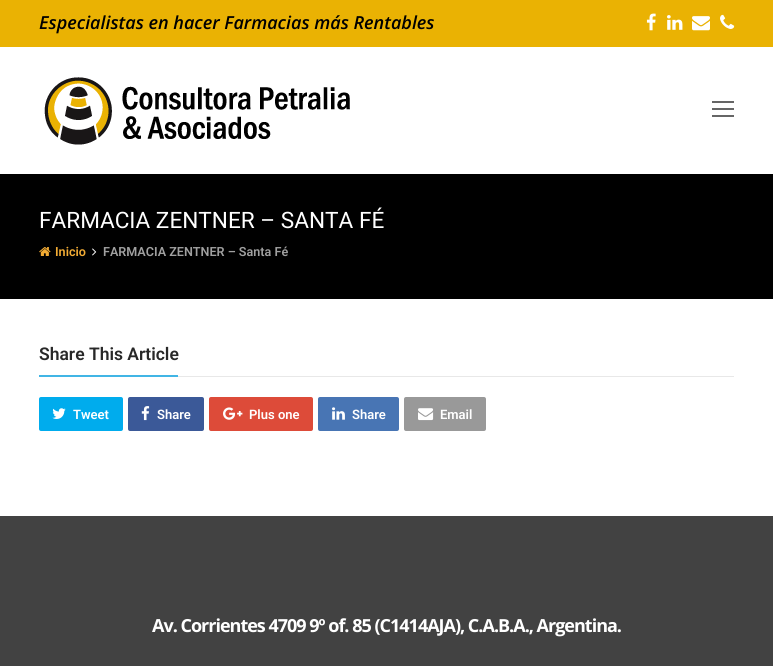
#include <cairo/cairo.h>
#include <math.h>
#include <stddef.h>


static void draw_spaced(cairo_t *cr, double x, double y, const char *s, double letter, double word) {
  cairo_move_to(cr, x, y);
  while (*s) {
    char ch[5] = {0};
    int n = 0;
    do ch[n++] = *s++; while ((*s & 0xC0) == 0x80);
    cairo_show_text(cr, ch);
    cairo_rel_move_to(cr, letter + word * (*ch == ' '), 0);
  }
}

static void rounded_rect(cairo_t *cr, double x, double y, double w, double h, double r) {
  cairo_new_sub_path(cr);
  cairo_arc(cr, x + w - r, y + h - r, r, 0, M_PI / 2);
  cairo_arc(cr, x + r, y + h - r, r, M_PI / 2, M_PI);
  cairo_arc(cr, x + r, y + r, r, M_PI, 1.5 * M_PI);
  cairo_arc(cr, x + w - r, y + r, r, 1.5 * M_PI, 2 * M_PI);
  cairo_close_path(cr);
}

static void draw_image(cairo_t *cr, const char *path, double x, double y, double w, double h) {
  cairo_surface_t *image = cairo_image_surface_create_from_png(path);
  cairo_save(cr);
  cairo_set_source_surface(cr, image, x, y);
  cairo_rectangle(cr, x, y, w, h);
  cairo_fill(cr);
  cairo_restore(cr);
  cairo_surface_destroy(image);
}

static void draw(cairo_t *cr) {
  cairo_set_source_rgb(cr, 1, 1, 1);
  cairo_paint(cr);
  cairo_set_source_rgb(cr, 234 / 255.0, 178 / 255.0, 3 / 255.0);
  cairo_rectangle(cr, 0, 0, 773, 47);
  cairo_fill(cr);
  draw_image(cr, "images/1.png", 646, 13, 10, 18);
  draw_image(cr, "images/2.png", 667, 15, 16, 15);
  draw_image(cr, "images/3.png", 692, 16, 18, 15);
  draw_image(cr, "images/4.png", 720, 14, 15, 15);
  draw_image(cr, "images/5.png", 44, 77, 306, 68);
  cairo_set_source_rgb(cr, 102 / 255.0, 102 / 255.0, 102 / 255.0);
  cairo_rectangle(cr, 712, 108, 22, 2);
  cairo_fill(cr);
  cairo_rectangle(cr, 712, 101, 22, 2);
  cairo_fill(cr);
  cairo_rectangle(cr, 712, 115, 22, 2);
  cairo_fill(cr);
  cairo_set_source_rgb(cr, 0, 0, 0);
  cairo_rectangle(cr, 0, 174, 773, 125);
  cairo_fill(cr);
  draw_image(cr, "images/6.png", 39, 247, 12, 9);
  draw_image(cr, "images/7.png", 92, 248, 5, 8);
  cairo_set_source_rgb(cr, 232 / 255.0, 232 / 255.0, 232 / 255.0);
  cairo_rectangle(cr, 178, 376, 556, 1);
  cairo_fill(cr);
  cairo_set_source_rgb(cr, 65 / 255.0, 181 / 255.0, 229 / 255.0);
  cairo_rectangle(cr, 39, 375, 139, 2);
  cairo_fill(cr);
  cairo_set_source_rgb(cr, 0, 172 / 255.0, 237 / 255.0);
  rounded_rect(cr, 39, 397, 84, 34, 2);
  cairo_fill(cr);
  draw_image(cr, "images/8.png", 52, 408, 14, 11);
  cairo_set_source_rgb(cr, 59 / 255.0, 89 / 255.0, 152 / 255.0);
  rounded_rect(cr, 128, 397, 76, 34, 2);
  cairo_fill(cr);
  draw_image(cr, "images/9.png", 141, 406, 9, 15);
  cairo_set_source_rgb(cr, 221 / 255.0, 75 / 255.0, 57 / 255.0);
  rounded_rect(cr, 209, 397, 104, 34, 2);
  cairo_fill(cr);
  draw_image(cr, "images/10.png", 223, 407, 20, 13);
  cairo_set_source_rgb(cr, 72 / 255.0, 117 / 255.0, 180 / 255.0);
  rounded_rect(cr, 318, 397, 81, 34, 2);
  cairo_fill(cr);
  draw_image(cr, "images/11.png", 332, 407, 13, 13);
  cairo_set_source_rgb(cr, 153 / 255.0, 153 / 255.0, 153 / 255.0);
  rounded_rect(cr, 404, 397, 82, 34, 2);
  cairo_fill(cr);
  draw_image(cr, "images/12.png", 418, 408, 16, 13);
  cairo_set_source_rgb(cr, 66 / 255.0, 66 / 255.0, 66 / 255.0);
  cairo_rectangle(cr, 0, 516, 773, 150);
  cairo_fill(cr);
  cairo_select_font_face(cr, "Open Sans SemiBold", CAIRO_FONT_SLANT_ITALIC, CAIRO_FONT_WEIGHT_NORMAL);
  cairo_set_font_size(cr, 18);
  cairo_set_source_rgb(cr, 0, 0, 0);
  cairo_move_to(cr, 39, 29);
  cairo_show_text(cr, "Especialistas en hacer Farmacias más Rentables");
  cairo_select_font_face(cr, "Roboto", CAIRO_FONT_SLANT_NORMAL, CAIRO_FONT_WEIGHT_NORMAL);
  cairo_set_font_size(cr, 22.6);
  cairo_set_source_rgb(cr, 1, 1, 1);
  cairo_move_to(cr, 39, 228);
  cairo_show_text(cr, "FARMACIA ZENTNER – SANTA FÉ");
  cairo_select_font_face(cr, "Roboto SemiBold", CAIRO_FONT_SLANT_NORMAL, CAIRO_FONT_WEIGHT_NORMAL);
  cairo_set_font_size(cr, 12.6);
  cairo_set_source_rgb(cr, 243 / 255.0, 172 / 255.0, 52 / 255.0);
  cairo_move_to(cr, 55, 256);
  cairo_show_text(cr, "Inicio");
  cairo_set_source_rgb(cr, 160 / 255.0, 160 / 255.0, 160 / 255.0);
  cairo_move_to(cr, 103, 256);
  cairo_show_text(cr, "FARMACIA ZENTNER – Santa Fé");
  cairo_set_font_size(cr, 17.5);
  cairo_set_source_rgb(cr, 40 / 255.0, 40 / 255.0, 40 / 255.0);
  cairo_move_to(cr, 39, 360);
  cairo_show_text(cr, "Share This Article");
  cairo_set_font_size(cr, 13);
  cairo_set_source_rgb(cr, 1, 1, 1);
  cairo_move_to(cr, 73, 419);
  cairo_show_text(cr, "Tweet");
  cairo_move_to(cr, 157, 419);
  cairo_show_text(cr, "Share");
  cairo_move_to(cr, 249, 419);
  cairo_show_text(cr, "Plus one");
  cairo_move_to(cr, 352, 419);
  cairo_show_text(cr, "Share");
  cairo_move_to(cr, 440, 419);
  cairo_show_text(cr, "Email");
  cairo_select_font_face(cr, "Open Sans", CAIRO_FONT_SLANT_NORMAL, CAIRO_FONT_WEIGHT_BOLD);
  cairo_set_font_size(cr, 18);
  draw_spaced(cr, 152, 632, "Av. Corrientes 4709 9º of. 85 (C1414AJA), C.A.B.A., Argentina.", -1, 0);
}

int main(void) {
  cairo_surface_t *surface = cairo_image_surface_create(CAIRO_FORMAT_RGB24, 773, 666);
  cairo_t *cr = cairo_create(surface);
  cairo_font_options_t *options = cairo_font_options_create();
  cairo_font_options_set_hint_metrics(options, CAIRO_HINT_METRICS_OFF);
  cairo_font_options_set_hint_style(options, CAIRO_HINT_STYLE_NONE);
  cairo_set_font_options(cr, options);
  cairo_set_miter_limit(cr, 4);
  draw(cr);
  cairo_surface_write_to_png(surface, "out.png");
  cairo_font_options_destroy(options);
  cairo_destroy(cr);
  cairo_surface_destroy(surface);
  return 0;
}
